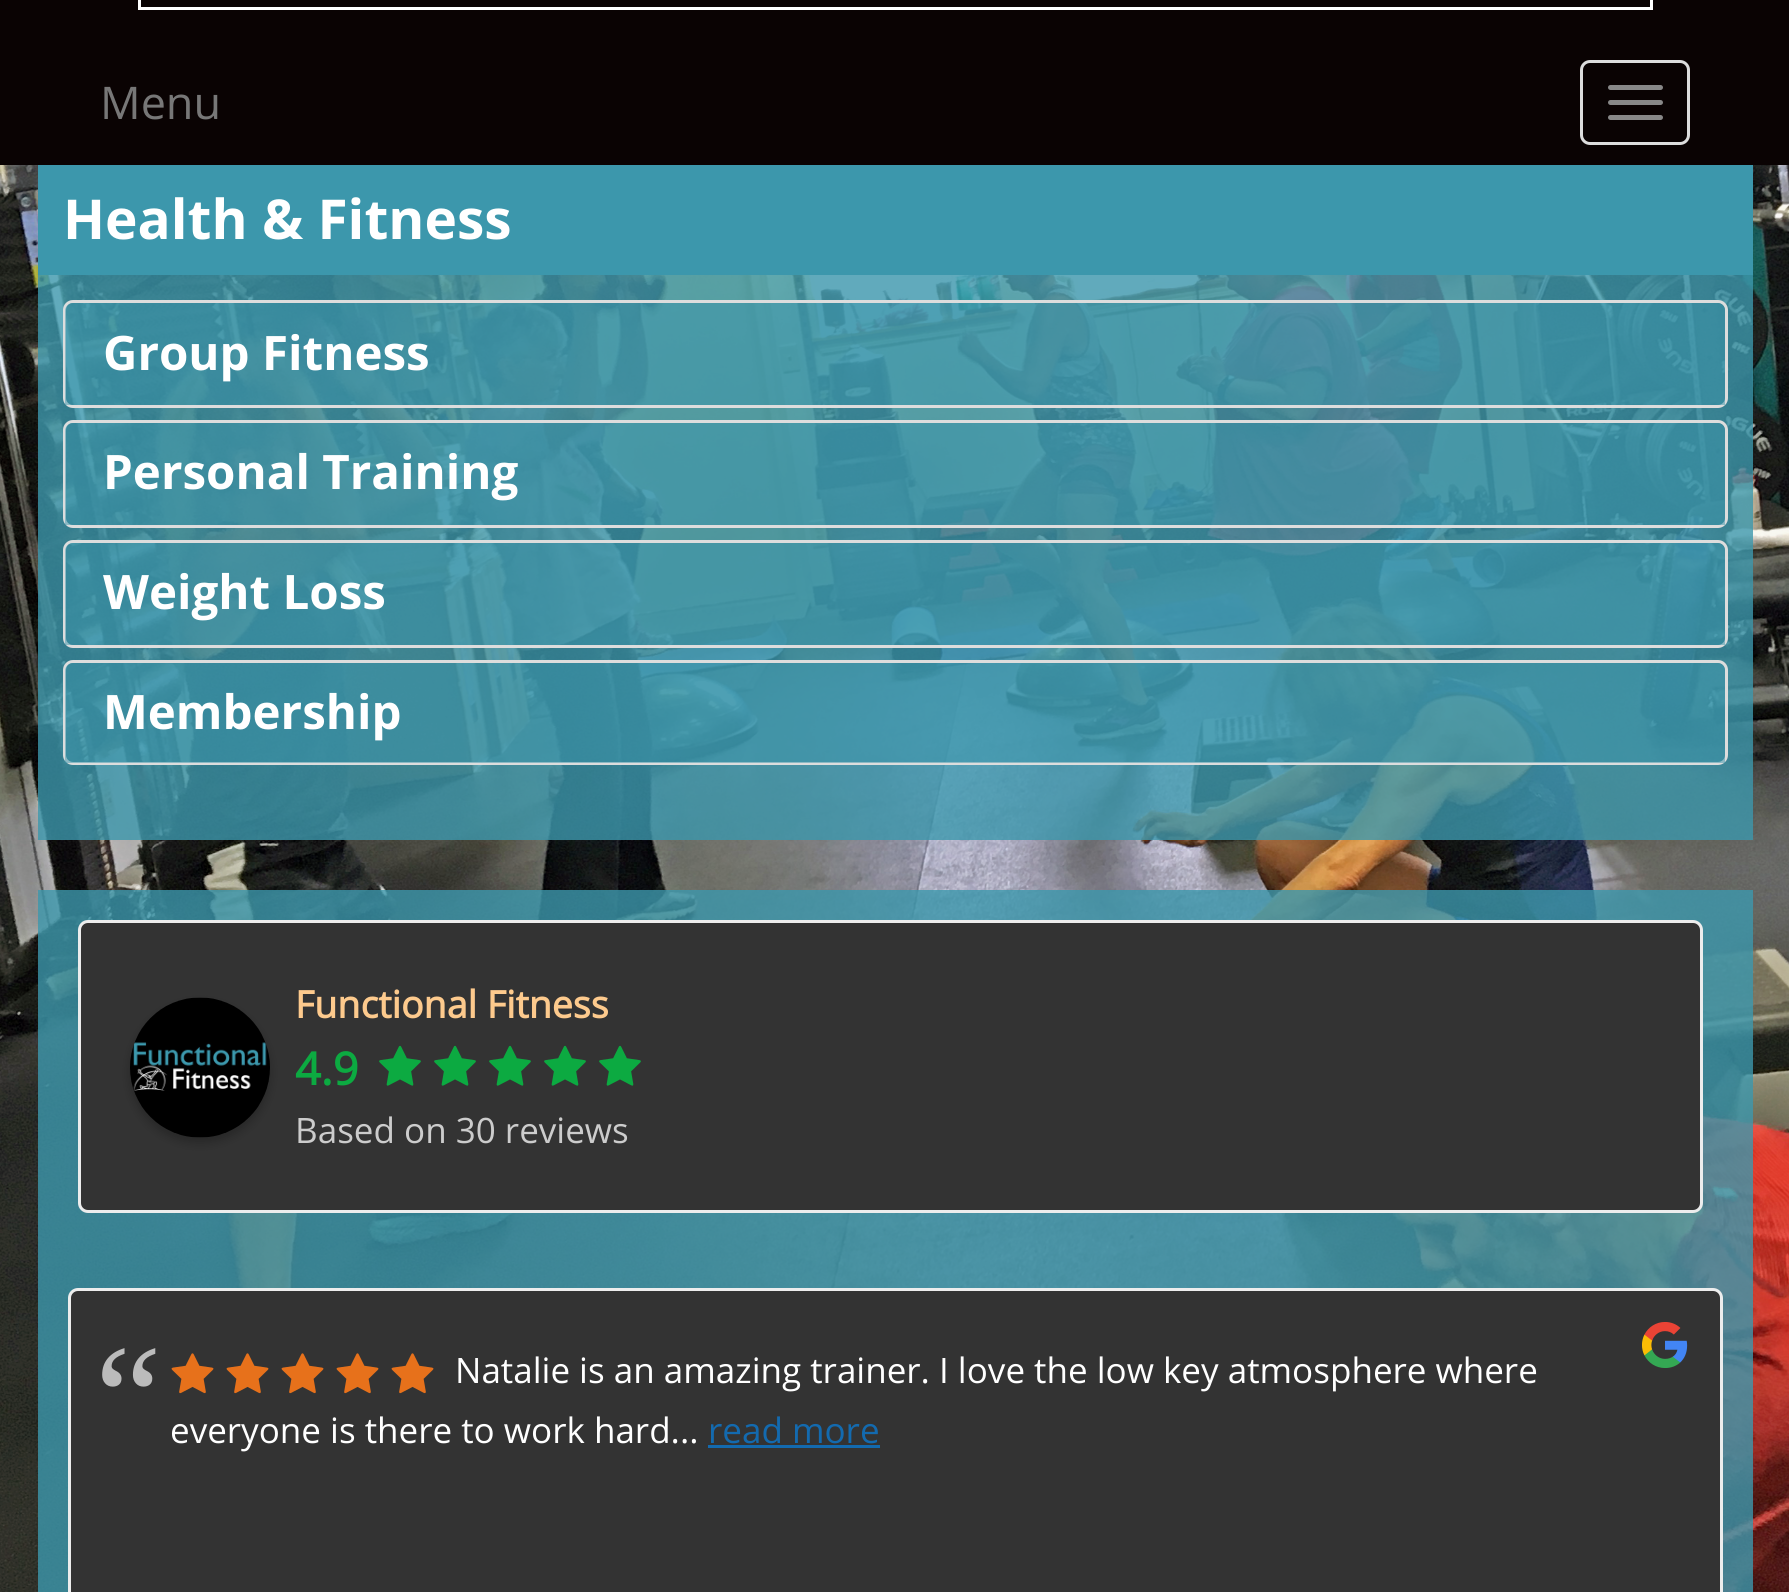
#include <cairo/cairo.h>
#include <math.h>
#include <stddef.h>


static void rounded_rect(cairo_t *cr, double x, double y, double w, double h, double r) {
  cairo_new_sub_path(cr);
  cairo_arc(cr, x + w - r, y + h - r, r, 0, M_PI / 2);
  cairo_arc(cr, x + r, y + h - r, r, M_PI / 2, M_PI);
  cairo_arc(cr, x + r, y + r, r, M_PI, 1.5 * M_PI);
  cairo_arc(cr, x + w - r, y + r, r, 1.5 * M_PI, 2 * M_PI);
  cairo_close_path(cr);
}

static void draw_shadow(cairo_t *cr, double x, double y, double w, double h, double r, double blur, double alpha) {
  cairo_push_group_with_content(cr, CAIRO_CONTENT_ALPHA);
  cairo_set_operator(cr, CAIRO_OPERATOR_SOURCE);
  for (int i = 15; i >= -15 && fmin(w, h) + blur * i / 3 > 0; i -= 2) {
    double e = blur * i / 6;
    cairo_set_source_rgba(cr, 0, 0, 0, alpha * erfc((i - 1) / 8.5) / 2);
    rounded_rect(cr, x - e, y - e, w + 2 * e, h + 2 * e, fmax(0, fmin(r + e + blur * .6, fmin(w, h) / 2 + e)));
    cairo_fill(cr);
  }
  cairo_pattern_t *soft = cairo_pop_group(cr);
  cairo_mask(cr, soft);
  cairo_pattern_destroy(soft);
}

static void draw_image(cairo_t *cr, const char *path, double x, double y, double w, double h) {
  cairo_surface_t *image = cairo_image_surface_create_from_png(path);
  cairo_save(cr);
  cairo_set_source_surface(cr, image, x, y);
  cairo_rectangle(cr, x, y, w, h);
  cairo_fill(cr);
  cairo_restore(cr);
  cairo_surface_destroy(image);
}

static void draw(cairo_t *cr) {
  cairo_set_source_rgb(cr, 1, 1, 1);
  cairo_paint(cr);
  draw_image(cr, "images/1.png", 0, 165, 1789, 1427);
  cairo_set_source_rgb(cr, 10 / 255.0, 3 / 255.0, 3 / 255.0);
  cairo_rectangle(cr, 0, 0, 1789, 165);
  cairo_fill(cr);
  cairo_rectangle(cr, 139.5, -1.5, 1512, 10);
  cairo_set_source_rgb(cr, 1, 1, 1);
  cairo_set_line_width(cr, 3);
  cairo_stroke(cr);
  rounded_rect(cr, 1581.5, 61.5, 107, 82, 8.5);
  cairo_set_source_rgb(cr, 221 / 255.0, 221 / 255.0, 221 / 255.0);
  cairo_stroke(cr);
  cairo_set_source_rgb(cr, 136 / 255.0, 136 / 255.0, 136 / 255.0);
  rounded_rect(cr, 1608, 85, 55, 5, 2.5);
  cairo_fill(cr);
  rounded_rect(cr, 1608, 100, 55, 5, 2.5);
  cairo_fill(cr);
  rounded_rect(cr, 1608, 115, 55, 5, 2.5);
  cairo_fill(cr);
  cairo_set_source_rgb(cr, 60 / 255.0, 151 / 255.0, 172 / 255.0);
  cairo_rectangle(cr, 38, 165, 1715, 110);
  cairo_fill(cr);
  cairo_set_source_rgba(cr, 60 / 255.0, 151 / 255.0, 172 / 255.0, 0.8);
  cairo_rectangle(cr, 38, 275, 1715, 565);
  cairo_fill(cr);
  rounded_rect(cr, 64.5, 301.5, 1662, 105, 8.5);
  cairo_set_source_rgb(cr, 221 / 255.0, 221 / 255.0, 221 / 255.0);
  cairo_stroke(cr);
  cairo_set_source_rgba(cr, 60 / 255.0, 151 / 255.0, 172 / 255.0, 0.5);
  cairo_new_path(cr);
  cairo_move_to(cr, 73, 303);
  cairo_line_to(cr, 1717, 303);
  cairo_curve_to(cr, 1721.5, 303, 1725, 306.5, 1725, 311);
  cairo_line_to(cr, 1725, 405);
  cairo_line_to(cr, 65, 405);
  cairo_line_to(cr, 65, 311);
  cairo_curve_to(cr, 65, 306.5, 68.5, 303, 73, 303);
  cairo_close_path(cr);
  cairo_fill(cr);
  rounded_rect(cr, 64.5, 421.5, 1662, 105, 8.5);
  cairo_set_source_rgb(cr, 221 / 255.0, 221 / 255.0, 221 / 255.0);
  cairo_stroke(cr);
  cairo_set_source_rgba(cr, 60 / 255.0, 151 / 255.0, 172 / 255.0, 0.5);
  cairo_new_path(cr);
  cairo_move_to(cr, 73, 423);
  cairo_line_to(cr, 1717, 423);
  cairo_curve_to(cr, 1721.5, 423, 1725, 426.5, 1725, 431);
  cairo_line_to(cr, 1725, 525);
  cairo_line_to(cr, 65, 525);
  cairo_line_to(cr, 65, 431);
  cairo_curve_to(cr, 65, 426.5, 68.5, 423, 73, 423);
  cairo_close_path(cr);
  cairo_fill(cr);
  rounded_rect(cr, 64.5, 541.5, 1662, 105, 8.5);
  cairo_set_source_rgb(cr, 221 / 255.0, 221 / 255.0, 221 / 255.0);
  cairo_stroke(cr);
  cairo_set_source_rgba(cr, 60 / 255.0, 151 / 255.0, 172 / 255.0, 0.5);
  cairo_new_path(cr);
  cairo_move_to(cr, 73, 543);
  cairo_line_to(cr, 1717, 543);
  cairo_curve_to(cr, 1721.5, 543, 1725, 546.5, 1725, 551);
  cairo_line_to(cr, 1725, 645);
  cairo_line_to(cr, 65, 645);
  cairo_line_to(cr, 65, 551);
  cairo_curve_to(cr, 65, 546.5, 68.5, 543, 73, 543);
  cairo_close_path(cr);
  cairo_fill(cr);
  rounded_rect(cr, 64.5, 661.5, 1662, 102, 8.5);
  cairo_set_source_rgb(cr, 221 / 255.0, 221 / 255.0, 221 / 255.0);
  cairo_stroke(cr);
  cairo_set_source_rgba(cr, 60 / 255.0, 151 / 255.0, 172 / 255.0, 0.5);
  cairo_new_path(cr);
  cairo_move_to(cr, 73, 663);
  cairo_line_to(cr, 1717, 663);
  cairo_curve_to(cr, 1721.5, 663, 1725, 666.5, 1725, 671);
  cairo_line_to(cr, 1725, 763);
  cairo_line_to(cr, 65, 763);
  cairo_line_to(cr, 65, 671);
  cairo_curve_to(cr, 65, 666.5, 68.5, 663, 73, 663);
  cairo_close_path(cr);
  cairo_fill(cr);
  cairo_set_source_rgba(cr, 60 / 255.0, 151 / 255.0, 172 / 255.0, 0.8);
  cairo_rectangle(cr, 38, 890, 1715, 702);
  cairo_fill(cr);
  cairo_set_source_rgb(cr, 51 / 255.0, 51 / 255.0, 51 / 255.0);
  rounded_rect(cr, 79.5, 921.5, 1622, 290, 8.5);
  cairo_fill_preserve(cr);
  cairo_set_source_rgb(cr, 237 / 255.0, 237 / 255.0, 237 / 255.0);
  cairo_stroke(cr);
  cairo_set_source_rgb(cr, 0, 0, 0);
  draw_shadow(cr, 130, 1003, 140, 140, 70, 5, 0.24);
  draw_image(cr, "images/2.png", 130, 997, 140, 141);
  draw_image(cr, "images/3.png", 379, 1045, 42, 41);
  draw_image(cr, "images/3.png", 434, 1045, 42, 41);
  draw_image(cr, "images/3.png", 489, 1045, 42, 41);
  draw_image(cr, "images/3.png", 544, 1045, 42, 41);
  draw_image(cr, "images/3.png", 599, 1045, 42, 41);
  cairo_set_source_rgb(cr, 51 / 255.0, 51 / 255.0, 51 / 255.0);
  rounded_rect(cr, 69.5, 1289.5, 1652, 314, 8.5);
  cairo_fill_preserve(cr);
  cairo_set_source_rgb(cr, 237 / 255.0, 237 / 255.0, 237 / 255.0);
  cairo_stroke(cr);
  draw_image(cr, "images/4.png", 171, 1353, 43, 41);
  draw_image(cr, "images/4.png", 226, 1353, 43, 41);
  draw_image(cr, "images/4.png", 281, 1353, 43, 41);
  draw_image(cr, "images/4.png", 336, 1353, 43, 41);
  draw_image(cr, "images/4.png", 391, 1353, 43, 41);
  draw_image(cr, "images/5.png", 1642, 1322, 46, 46);
  cairo_set_source_rgb(cr, 19 / 255.0, 106 / 255.0, 175 / 255.0);
  cairo_rectangle(cr, 708, 1445, 172, 3);
  cairo_fill(cr);
  cairo_select_font_face(cr, "Open Sans", CAIRO_FONT_SLANT_NORMAL, CAIRO_FONT_WEIGHT_NORMAL);
  cairo_set_font_size(cr, 45);
  cairo_set_source_rgb(cr, 119 / 255.0, 119 / 255.0, 119 / 255.0);
  cairo_move_to(cr, 100, 119);
  cairo_show_text(cr, "Menu");
  cairo_select_font_face(cr, "Open Sans", CAIRO_FONT_SLANT_NORMAL, CAIRO_FONT_WEIGHT_BOLD);
  cairo_set_font_size(cr, 55);
  cairo_set_source_rgb(cr, 1, 1, 1);
  cairo_move_to(cr, 63, 239);
  cairo_show_text(cr, "Health & Fitness");
  cairo_set_font_size(cr, 47.5);
  cairo_move_to(cr, 103, 370);
  cairo_show_text(cr, "Group Fitness");
  cairo_move_to(cr, 103, 489);
  cairo_show_text(cr, "Personal Training");
  cairo_move_to(cr, 103, 609);
  cairo_show_text(cr, "Weight Loss");
  cairo_move_to(cr, 103, 729);
  cairo_show_text(cr, "Membership");
  cairo_select_font_face(cr, "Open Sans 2", CAIRO_FONT_SLANT_NORMAL, CAIRO_FONT_WEIGHT_BOLD);
  cairo_set_font_size(cr, 37.5);
  cairo_set_source_rgb(cr, 253 / 255.0, 202 / 255.0, 141 / 255.0);
  cairo_move_to(cr, 295, 1018);
  cairo_show_text(cr, "Functional Fitness");
  cairo_set_font_size(cr, 45);
  cairo_set_source_rgb(cr, 12 / 255.0, 170 / 255.0, 65 / 255.0);
  cairo_move_to(cr, 295, 1085);
  cairo_show_text(cr, "4.9");
  cairo_select_font_face(cr, "Open Sans", CAIRO_FONT_SLANT_NORMAL, CAIRO_FONT_WEIGHT_NORMAL);
  cairo_set_font_size(cr, 35);
  cairo_set_source_rgb(cr, 204 / 255.0, 204 / 255.0, 204 / 255.0);
  cairo_move_to(cr, 295, 1143);
  cairo_show_text(cr, "Based on 30 reviews");
  cairo_select_font_face(cr, "Liberation Serif", CAIRO_FONT_SLANT_NORMAL, CAIRO_FONT_WEIGHT_NORMAL);
  cairo_set_font_size(cr, 150);
  cairo_set_source_rgb(cr, 187 / 255.0, 187 / 255.0, 187 / 255.0);
  cairo_move_to(cr, 95, 1448);
  cairo_show_text(cr, "“");
  cairo_select_font_face(cr, "Open Sans", CAIRO_FONT_SLANT_NORMAL, CAIRO_FONT_WEIGHT_NORMAL);
  cairo_set_font_size(cr, 35);
  cairo_set_source_rgb(cr, 1, 1, 1);
  cairo_move_to(cr, 455, 1383);
  cairo_show_text(cr, "Natalie is an amazing trainer. I love the low key atmosphere where");
  cairo_move_to(cr, 170, 1443);
  cairo_show_text(cr, "everyone is there to work hard...");
  cairo_set_source_rgb(cr, 19 / 255.0, 106 / 255.0, 175 / 255.0);
  cairo_move_to(cr, 708, 1443);
  cairo_show_text(cr, "read more");
}

int main(void) {
  cairo_surface_t *surface = cairo_image_surface_create(CAIRO_FORMAT_RGB24, 1789, 1592);
  cairo_t *cr = cairo_create(surface);
  cairo_font_options_t *options = cairo_font_options_create();
  cairo_font_options_set_hint_metrics(options, CAIRO_HINT_METRICS_OFF);
  cairo_font_options_set_hint_style(options, CAIRO_HINT_STYLE_NONE);
  cairo_set_font_options(cr, options);
  cairo_set_miter_limit(cr, 4);
  draw(cr);
  cairo_surface_write_to_png(surface, "out.png");
  cairo_font_options_destroy(options);
  cairo_destroy(cr);
  cairo_surface_destroy(surface);
  return 0;
}
